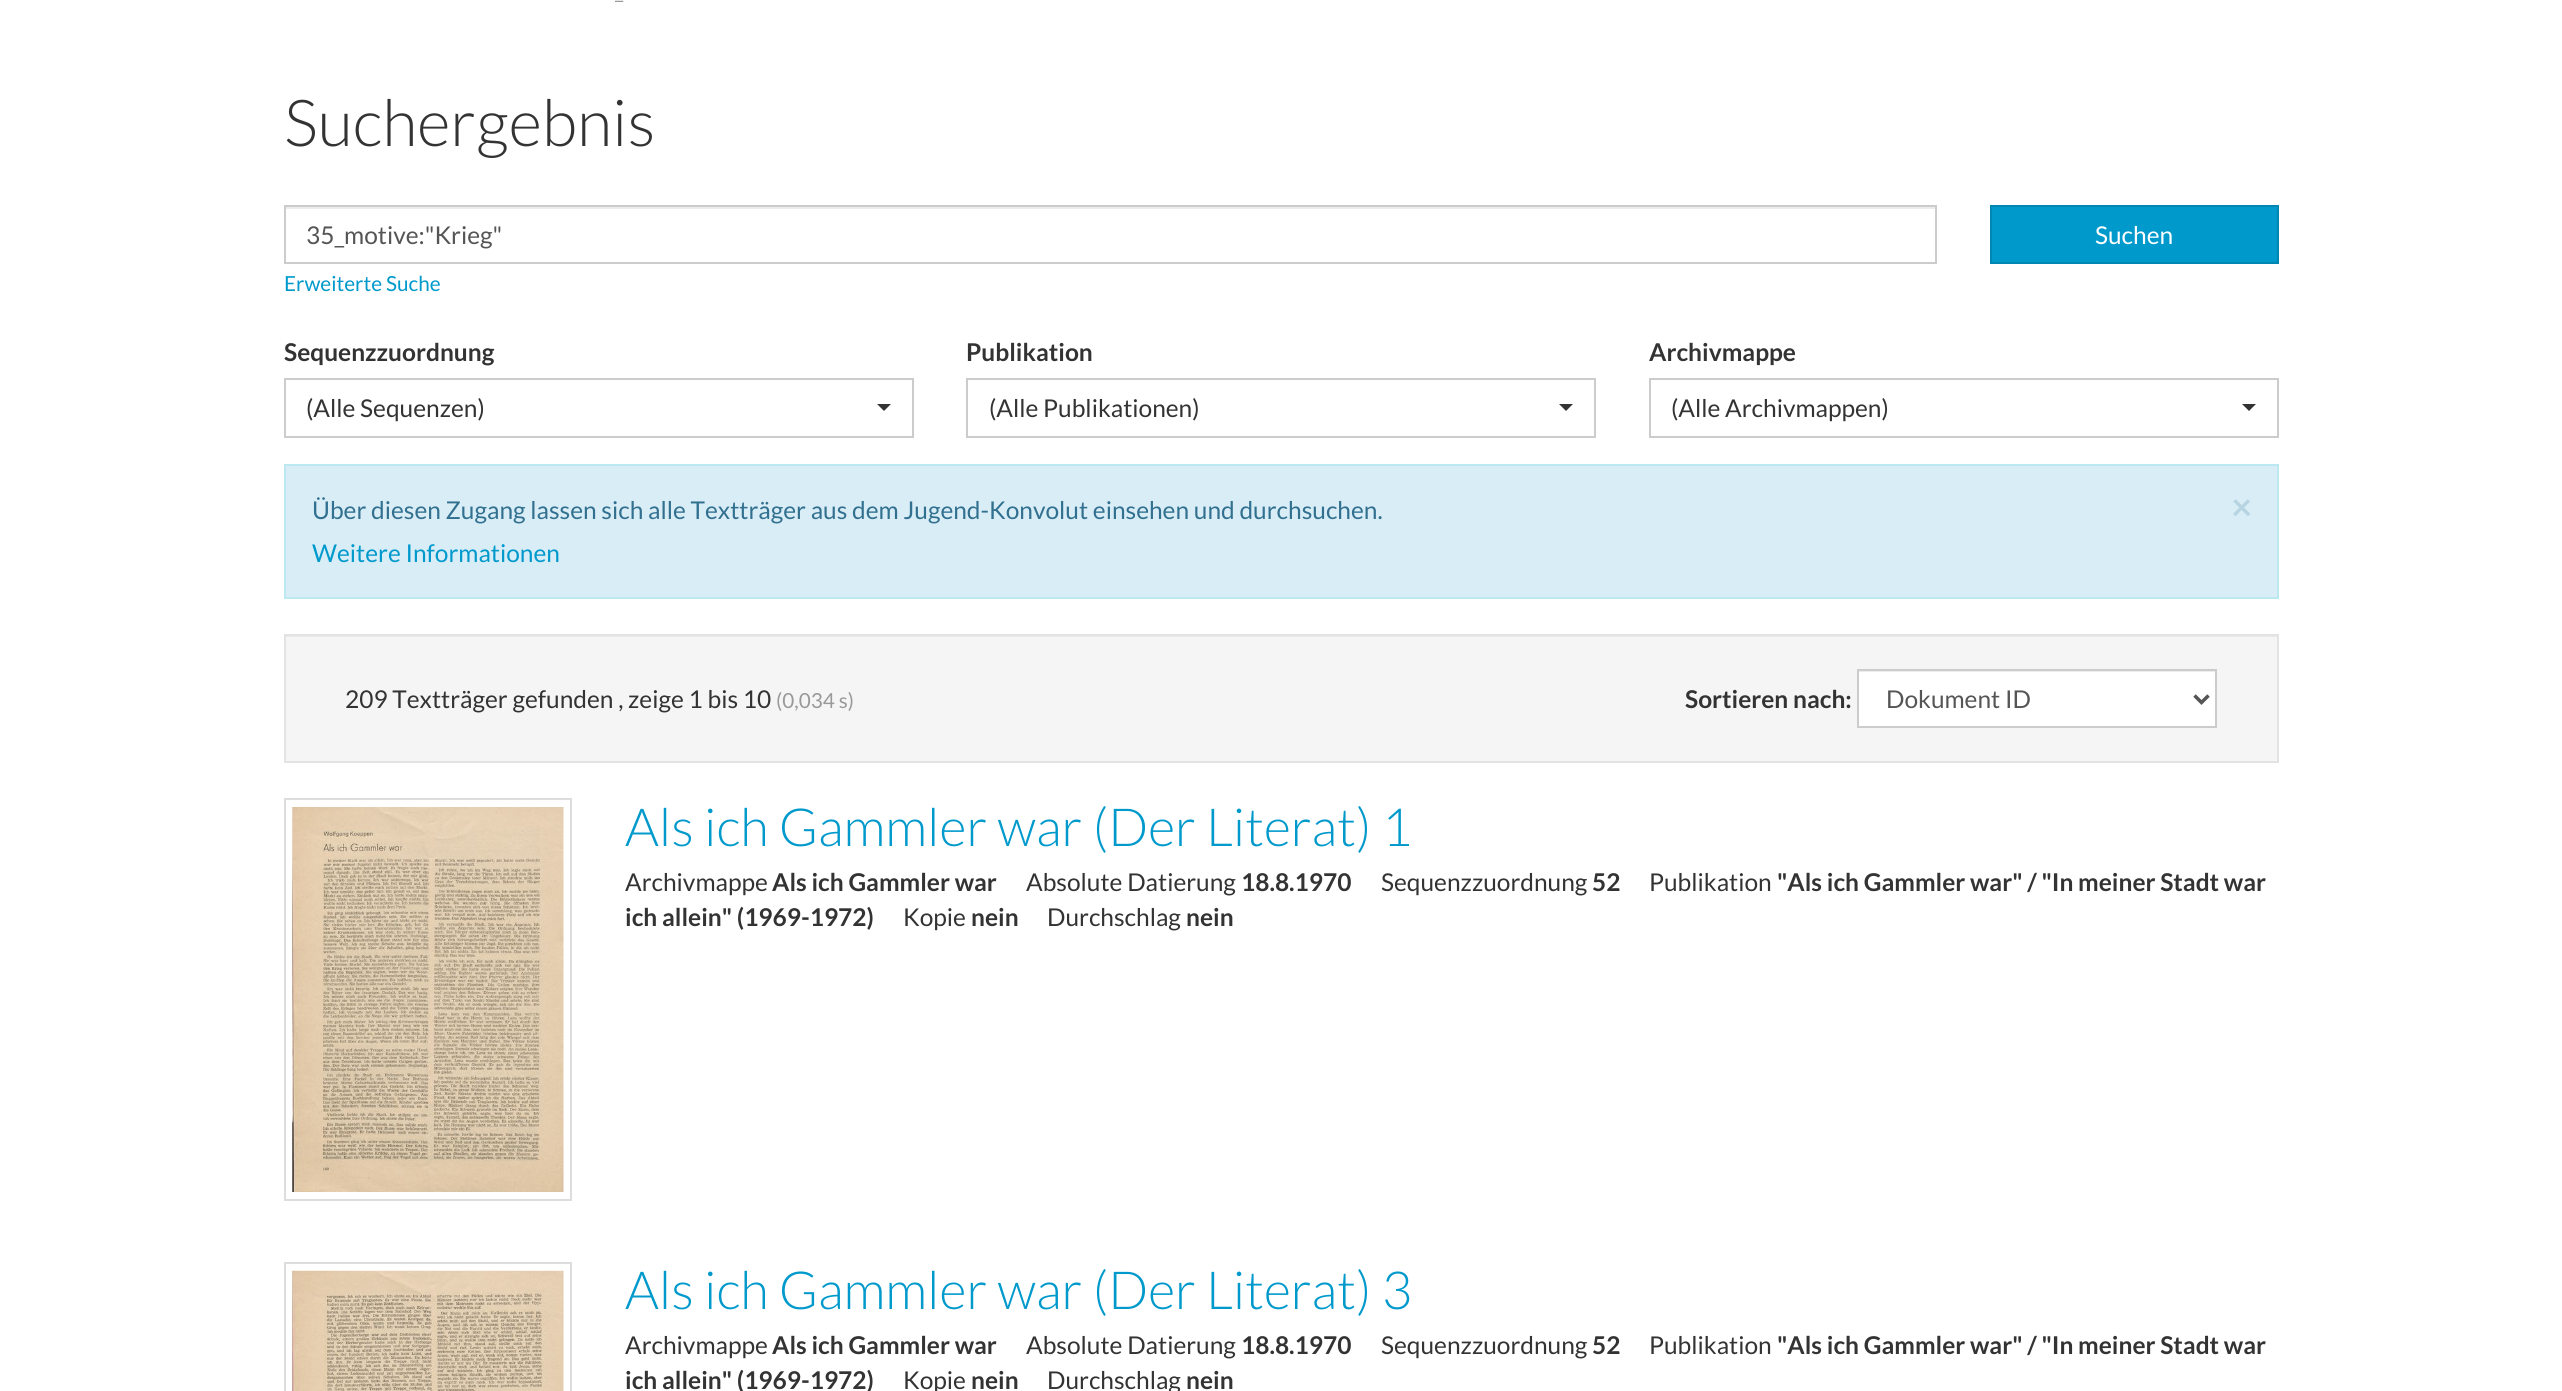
#include <cairo/cairo.h>
#include <math.h>
#include <stddef.h>


static void draw_image(cairo_t *cr, const char *path, double x, double y, double w, double h) {
  cairo_surface_t *image = cairo_image_surface_create_from_png(path);
  cairo_save(cr);
  cairo_set_source_surface(cr, image, x, y);
  cairo_rectangle(cr, x, y, w, h);
  cairo_fill(cr);
  cairo_restore(cr);
  cairo_surface_destroy(image);
}

static void draw(cairo_t *cr) {
  cairo_set_source_rgb(cr, 1, 1, 1);
  cairo_paint(cr);
  cairo_set_source_rgb(cr, 236 / 255.0, 236 / 255.0, 236 / 255.0);
  cairo_rectangle(cr, 285, 207, 1651, 2);
  cairo_fill(cr);
  cairo_rectangle(cr, 285, 206, 1651, 57);
  cairo_set_source_rgb(cr, 204 / 255.0, 204 / 255.0, 204 / 255.0);
  cairo_stroke(cr);
  cairo_set_source_rgb(cr, 0, 153 / 255.0, 204 / 255.0);
  cairo_rectangle(cr, 1991, 206, 287, 57);
  cairo_fill_preserve(cr);
  cairo_set_source_rgb(cr, 0, 134 / 255.0, 179 / 255.0);
  cairo_stroke(cr);
  cairo_rectangle(cr, 285, 379, 628, 58);
  cairo_set_source_rgb(cr, 204 / 255.0, 204 / 255.0, 204 / 255.0);
  cairo_stroke(cr);
  cairo_set_source_rgb(cr, 51 / 255.0, 51 / 255.0, 51 / 255.0);
  cairo_new_path(cr);
  cairo_move_to(cr, 877, 404);
  cairo_line_to(cr, 891, 404);
  cairo_line_to(cr, 884, 411);
  cairo_close_path(cr);
  cairo_fill(cr);
  cairo_rectangle(cr, 967, 379, 628, 58);
  cairo_set_source_rgb(cr, 204 / 255.0, 204 / 255.0, 204 / 255.0);
  cairo_stroke(cr);
  cairo_set_source_rgb(cr, 51 / 255.0, 51 / 255.0, 51 / 255.0);
  cairo_new_path(cr);
  cairo_move_to(cr, 1559, 404);
  cairo_line_to(cr, 1573, 404);
  cairo_line_to(cr, 1566, 411);
  cairo_close_path(cr);
  cairo_fill(cr);
  cairo_rectangle(cr, 1650, 379, 628, 58);
  cairo_set_source_rgb(cr, 204 / 255.0, 204 / 255.0, 204 / 255.0);
  cairo_stroke(cr);
  cairo_set_source_rgb(cr, 51 / 255.0, 51 / 255.0, 51 / 255.0);
  cairo_new_path(cr);
  cairo_move_to(cr, 2242, 404);
  cairo_line_to(cr, 2256, 404);
  cairo_line_to(cr, 2249, 411);
  cairo_close_path(cr);
  cairo_fill(cr);
  cairo_set_source_rgb(cr, 217 / 255.0, 237 / 255.0, 247 / 255.0);
  cairo_rectangle(cr, 285, 465, 1993, 133);
  cairo_fill_preserve(cr);
  cairo_set_source_rgb(cr, 188 / 255.0, 232 / 255.0, 241 / 255.0);
  cairo_stroke(cr);
  cairo_set_source_rgb(cr, 245 / 255.0, 245 / 255.0, 245 / 255.0);
  cairo_rectangle(cr, 286, 637, 1991, 124);
  cairo_fill(cr);
  cairo_set_source_rgb(cr, 233 / 255.0, 233 / 255.0, 233 / 255.0);
  cairo_rectangle(cr, 285, 636, 1992, 1);
  cairo_fill(cr);
  cairo_rectangle(cr, 285, 635, 1993, 127);
  cairo_set_source_rgb(cr, 227 / 255.0, 227 / 255.0, 227 / 255.0);
  cairo_stroke(cr);
  cairo_set_source_rgb(cr, 1, 1, 1);
  cairo_rectangle(cr, 1859, 672, 356, 54);
  cairo_fill(cr);
  cairo_set_source_rgb(cr, 236 / 255.0, 236 / 255.0, 236 / 255.0);
  cairo_rectangle(cr, 1859, 671, 357, 1);
  cairo_fill(cr);
  cairo_rectangle(cr, 1858, 670, 358, 57);
  cairo_set_source_rgb(cr, 204 / 255.0, 204 / 255.0, 204 / 255.0);
  cairo_stroke(cr);
  cairo_new_path(cr);
  cairo_move_to(cr, 2194.5, 695.5);
  cairo_line_to(cr, 2201.5, 702.5);
  cairo_line_to(cr, 2208.5, 695.5);
  cairo_set_source_rgb(cr, 85 / 255.0, 85 / 255.0, 85 / 255.0);
  cairo_set_line_width(cr, 3.5);
  cairo_stroke(cr);
  cairo_rectangle(cr, 285, 799, 286, 401);
  cairo_set_source_rgb(cr, 221 / 255.0, 221 / 255.0, 221 / 255.0);
  cairo_set_line_width(cr, 2);
  cairo_stroke(cr);
  draw_image(cr, "images/1.png", 292, 807, 272, 385);
  cairo_rectangle(cr, 285, 1263, 286, 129);
  cairo_stroke(cr);
  draw_image(cr, "images/2.png", 292, 1270, 272, 121);
  cairo_select_font_face(cr, "Lato", CAIRO_FONT_SLANT_NORMAL, CAIRO_FONT_WEIGHT_NORMAL);
  cairo_set_font_size(cr, 21);
  cairo_set_source_rgb(cr, 153 / 255.0, 153 / 255.0, 153 / 255.0);
  cairo_move_to(cr, 615, -1);
  cairo_show_text(cr, "_");
  cairo_select_font_face(cr, "Lato Light", CAIRO_FONT_SLANT_NORMAL, CAIRO_FONT_WEIGHT_NORMAL);
  cairo_set_font_size(cr, 64.75);
  cairo_set_source_rgb(cr, 51 / 255.0, 51 / 255.0, 51 / 255.0);
  cairo_move_to(cr, 284, 146);
  cairo_show_text(cr, "Suchergebnis");
  cairo_select_font_face(cr, "Lato", CAIRO_FONT_SLANT_NORMAL, CAIRO_FONT_WEIGHT_NORMAL);
  cairo_set_font_size(cr, 24.5);
  cairo_set_source_rgb(cr, 85 / 255.0, 85 / 255.0, 85 / 255.0);
  cairo_move_to(cr, 306, 244);
  cairo_show_text(cr, "35_motive:\"Krieg\"");
  cairo_set_source_rgb(cr, 1, 1, 1);
  cairo_move_to(cr, 2095, 244);
  cairo_show_text(cr, "Suchen");
  cairo_set_font_size(cr, 20.75);
  cairo_set_source_rgb(cr, 0, 153 / 255.0, 204 / 255.0);
  cairo_move_to(cr, 284, 291);
  cairo_show_text(cr, "Erweiterte Suche");
  cairo_select_font_face(cr, "Lato", CAIRO_FONT_SLANT_NORMAL, CAIRO_FONT_WEIGHT_BOLD);
  cairo_set_font_size(cr, 24.5);
  cairo_set_source_rgb(cr, 51 / 255.0, 51 / 255.0, 51 / 255.0);
  cairo_move_to(cr, 284, 361);
  cairo_show_text(cr, "Sequenzzuordnung");
  cairo_select_font_face(cr, "Lato", CAIRO_FONT_SLANT_NORMAL, CAIRO_FONT_WEIGHT_NORMAL);
  cairo_move_to(cr, 306, 417);
  cairo_show_text(cr, "(Alle Sequenzen)");
  cairo_select_font_face(cr, "Lato", CAIRO_FONT_SLANT_NORMAL, CAIRO_FONT_WEIGHT_BOLD);
  cairo_move_to(cr, 966, 361);
  cairo_show_text(cr, "Publikation");
  cairo_select_font_face(cr, "Lato", CAIRO_FONT_SLANT_NORMAL, CAIRO_FONT_WEIGHT_NORMAL);
  cairo_move_to(cr, 989, 417);
  cairo_show_text(cr, "(Alle Publikationen)");
  cairo_select_font_face(cr, "Lato", CAIRO_FONT_SLANT_NORMAL, CAIRO_FONT_WEIGHT_BOLD);
  cairo_move_to(cr, 1649, 361);
  cairo_show_text(cr, "Archivmappe");
  cairo_select_font_face(cr, "Lato", CAIRO_FONT_SLANT_NORMAL, CAIRO_FONT_WEIGHT_NORMAL);
  cairo_move_to(cr, 1671, 417);
  cairo_show_text(cr, "(Alle Archivmappen)");
  cairo_set_source_rgb(cr, 49 / 255.0, 112 / 255.0, 143 / 255.0);
  cairo_move_to(cr, 312, 519);
  cairo_show_text(cr, "Über diesen Zugang lassen sich alle Textträger aus dem Jugend-Konvolut einsehen und durchsuchen.");
  cairo_select_font_face(cr, "Lato", CAIRO_FONT_SLANT_NORMAL, CAIRO_FONT_WEIGHT_BOLD);
  cairo_set_font_size(cr, 37);
  cairo_set_source_rgb(cr, 183 / 255.0, 212 / 255.0, 226 / 255.0);
  cairo_move_to(cr, 2231, 520);
  cairo_show_text(cr, "×");
  cairo_select_font_face(cr, "Lato", CAIRO_FONT_SLANT_NORMAL, CAIRO_FONT_WEIGHT_NORMAL);
  cairo_set_font_size(cr, 24.5);
  cairo_set_source_rgb(cr, 0, 153 / 255.0, 204 / 255.0);
  cairo_move_to(cr, 312, 562);
  cairo_show_text(cr, "Weitere Informationen");
  cairo_set_source_rgb(cr, 51 / 255.0, 51 / 255.0, 51 / 255.0);
  cairo_move_to(cr, 345, 708);
  cairo_show_text(cr, "209 Textträger gefunden , zeige 1 bis 10");
  cairo_set_font_size(cr, 20.75);
  cairo_set_source_rgb(cr, 153 / 255.0, 153 / 255.0, 153 / 255.0);
  cairo_move_to(cr, 776, 708);
  cairo_show_text(cr, "(0,034 s)");
  cairo_select_font_face(cr, "Lato", CAIRO_FONT_SLANT_NORMAL, CAIRO_FONT_WEIGHT_BOLD);
  cairo_set_font_size(cr, 24.5);
  cairo_set_source_rgb(cr, 51 / 255.0, 51 / 255.0, 51 / 255.0);
  cairo_move_to(cr, 1685, 708);
  cairo_show_text(cr, "Sortieren nach:");
  cairo_select_font_face(cr, "Lato", CAIRO_FONT_SLANT_NORMAL, CAIRO_FONT_WEIGHT_NORMAL);
  cairo_set_source_rgb(cr, 85 / 255.0, 85 / 255.0, 85 / 255.0);
  cairo_move_to(cr, 1886, 708);
  cairo_show_text(cr, "Dokument ID");
  cairo_select_font_face(cr, "Lato Light", CAIRO_FONT_SLANT_NORMAL, CAIRO_FONT_WEIGHT_NORMAL);
  cairo_set_font_size(cr, 52.5);
  cairo_set_source_rgb(cr, 0, 153 / 255.0, 204 / 255.0);
  cairo_move_to(cr, 625, 846);
  cairo_show_text(cr, "Als ich Gammler war (Der Literat) 1");
  cairo_select_font_face(cr, "Lato", CAIRO_FONT_SLANT_NORMAL, CAIRO_FONT_WEIGHT_NORMAL);
  cairo_set_font_size(cr, 24.5);
  cairo_set_source_rgb(cr, 51 / 255.0, 51 / 255.0, 51 / 255.0);
  cairo_move_to(cr, 625, 891);
  cairo_show_text(cr, "Archivmappe");
  cairo_select_font_face(cr, "Lato", CAIRO_FONT_SLANT_NORMAL, CAIRO_FONT_WEIGHT_BOLD);
  cairo_move_to(cr, 772, 891);
  cairo_show_text(cr, "Als ich Gammler war");
  cairo_select_font_face(cr, "Lato", CAIRO_FONT_SLANT_NORMAL, CAIRO_FONT_WEIGHT_NORMAL);
  cairo_move_to(cr, 1026, 891);
  cairo_show_text(cr, "Absolute Datierung");
  cairo_select_font_face(cr, "Lato", CAIRO_FONT_SLANT_NORMAL, CAIRO_FONT_WEIGHT_BOLD);
  cairo_move_to(cr, 1241, 891);
  cairo_show_text(cr, "18.8.1970");
  cairo_select_font_face(cr, "Lato", CAIRO_FONT_SLANT_NORMAL, CAIRO_FONT_WEIGHT_NORMAL);
  cairo_move_to(cr, 1381, 891);
  cairo_show_text(cr, "Sequenzzuordnung");
  cairo_select_font_face(cr, "Lato", CAIRO_FONT_SLANT_NORMAL, CAIRO_FONT_WEIGHT_BOLD);
  cairo_move_to(cr, 1592, 891);
  cairo_show_text(cr, "52");
  cairo_select_font_face(cr, "Lato", CAIRO_FONT_SLANT_NORMAL, CAIRO_FONT_WEIGHT_NORMAL);
  cairo_move_to(cr, 1649, 891);
  cairo_show_text(cr, "Publikation");
  cairo_select_font_face(cr, "Lato", CAIRO_FONT_SLANT_NORMAL, CAIRO_FONT_WEIGHT_BOLD);
  cairo_move_to(cr, 1777, 891);
  cairo_show_text(cr, "\"Als ich Gammler war\" / \"In meiner Stadt war");
  cairo_move_to(cr, 625, 926);
  cairo_show_text(cr, "ich allein\" (1969-1972)");
  cairo_select_font_face(cr, "Lato", CAIRO_FONT_SLANT_NORMAL, CAIRO_FONT_WEIGHT_NORMAL);
  cairo_move_to(cr, 903, 926);
  cairo_show_text(cr, "Kopie");
  cairo_select_font_face(cr, "Lato", CAIRO_FONT_SLANT_NORMAL, CAIRO_FONT_WEIGHT_BOLD);
  cairo_move_to(cr, 971, 926);
  cairo_show_text(cr, "nein");
  cairo_select_font_face(cr, "Lato", CAIRO_FONT_SLANT_NORMAL, CAIRO_FONT_WEIGHT_NORMAL);
  cairo_move_to(cr, 1047, 926);
  cairo_show_text(cr, "Durchschlag");
  cairo_select_font_face(cr, "Lato", CAIRO_FONT_SLANT_NORMAL, CAIRO_FONT_WEIGHT_BOLD);
  cairo_move_to(cr, 1186, 926);
  cairo_show_text(cr, "nein");
  cairo_select_font_face(cr, "Lato Light", CAIRO_FONT_SLANT_NORMAL, CAIRO_FONT_WEIGHT_NORMAL);
  cairo_set_font_size(cr, 52.5);
  cairo_set_source_rgb(cr, 0, 153 / 255.0, 204 / 255.0);
  cairo_move_to(cr, 625, 1309);
  cairo_show_text(cr, "Als ich Gammler war (Der Literat) 3");
  cairo_select_font_face(cr, "Lato", CAIRO_FONT_SLANT_NORMAL, CAIRO_FONT_WEIGHT_NORMAL);
  cairo_set_font_size(cr, 24.5);
  cairo_set_source_rgb(cr, 51 / 255.0, 51 / 255.0, 51 / 255.0);
  cairo_move_to(cr, 625, 1354);
  cairo_show_text(cr, "Archivmappe");
  cairo_select_font_face(cr, "Lato", CAIRO_FONT_SLANT_NORMAL, CAIRO_FONT_WEIGHT_BOLD);
  cairo_move_to(cr, 772, 1354);
  cairo_show_text(cr, "Als ich Gammler war");
  cairo_select_font_face(cr, "Lato", CAIRO_FONT_SLANT_NORMAL, CAIRO_FONT_WEIGHT_NORMAL);
  cairo_move_to(cr, 1026, 1354);
  cairo_show_text(cr, "Absolute Datierung");
  cairo_select_font_face(cr, "Lato", CAIRO_FONT_SLANT_NORMAL, CAIRO_FONT_WEIGHT_BOLD);
  cairo_move_to(cr, 1241, 1354);
  cairo_show_text(cr, "18.8.1970");
  cairo_select_font_face(cr, "Lato", CAIRO_FONT_SLANT_NORMAL, CAIRO_FONT_WEIGHT_NORMAL);
  cairo_move_to(cr, 1381, 1354);
  cairo_show_text(cr, "Sequenzzuordnung");
  cairo_select_font_face(cr, "Lato", CAIRO_FONT_SLANT_NORMAL, CAIRO_FONT_WEIGHT_BOLD);
  cairo_move_to(cr, 1592, 1354);
  cairo_show_text(cr, "52");
  cairo_select_font_face(cr, "Lato", CAIRO_FONT_SLANT_NORMAL, CAIRO_FONT_WEIGHT_NORMAL);
  cairo_move_to(cr, 1649, 1354);
  cairo_show_text(cr, "Publikation");
  cairo_select_font_face(cr, "Lato", CAIRO_FONT_SLANT_NORMAL, CAIRO_FONT_WEIGHT_BOLD);
  cairo_move_to(cr, 1777, 1354);
  cairo_show_text(cr, "\"Als ich Gammler war\" / \"In meiner Stadt war");
  cairo_move_to(cr, 625, 1389);
  cairo_show_text(cr, "ich allein\" (1969-1972)");
  cairo_select_font_face(cr, "Lato", CAIRO_FONT_SLANT_NORMAL, CAIRO_FONT_WEIGHT_NORMAL);
  cairo_move_to(cr, 903, 1389);
  cairo_show_text(cr, "Kopie");
  cairo_select_font_face(cr, "Lato", CAIRO_FONT_SLANT_NORMAL, CAIRO_FONT_WEIGHT_BOLD);
  cairo_move_to(cr, 971, 1389);
  cairo_show_text(cr, "nein");
  cairo_select_font_face(cr, "Lato", CAIRO_FONT_SLANT_NORMAL, CAIRO_FONT_WEIGHT_NORMAL);
  cairo_move_to(cr, 1047, 1389);
  cairo_show_text(cr, "Durchschlag");
  cairo_select_font_face(cr, "Lato", CAIRO_FONT_SLANT_NORMAL, CAIRO_FONT_WEIGHT_BOLD);
  cairo_move_to(cr, 1186, 1389);
  cairo_show_text(cr, "nein");
}

int main(void) {
  cairo_surface_t *surface = cairo_image_surface_create(CAIRO_FORMAT_RGB24, 2562, 1391);
  cairo_t *cr = cairo_create(surface);
  cairo_font_options_t *options = cairo_font_options_create();
  cairo_font_options_set_hint_metrics(options, CAIRO_HINT_METRICS_OFF);
  cairo_font_options_set_hint_style(options, CAIRO_HINT_STYLE_NONE);
  cairo_set_font_options(cr, options);
  cairo_set_miter_limit(cr, 4);
  draw(cr);
  cairo_surface_write_to_png(surface, "out.png");
  cairo_font_options_destroy(options);
  cairo_destroy(cr);
  cairo_surface_destroy(surface);
  return 0;
}
